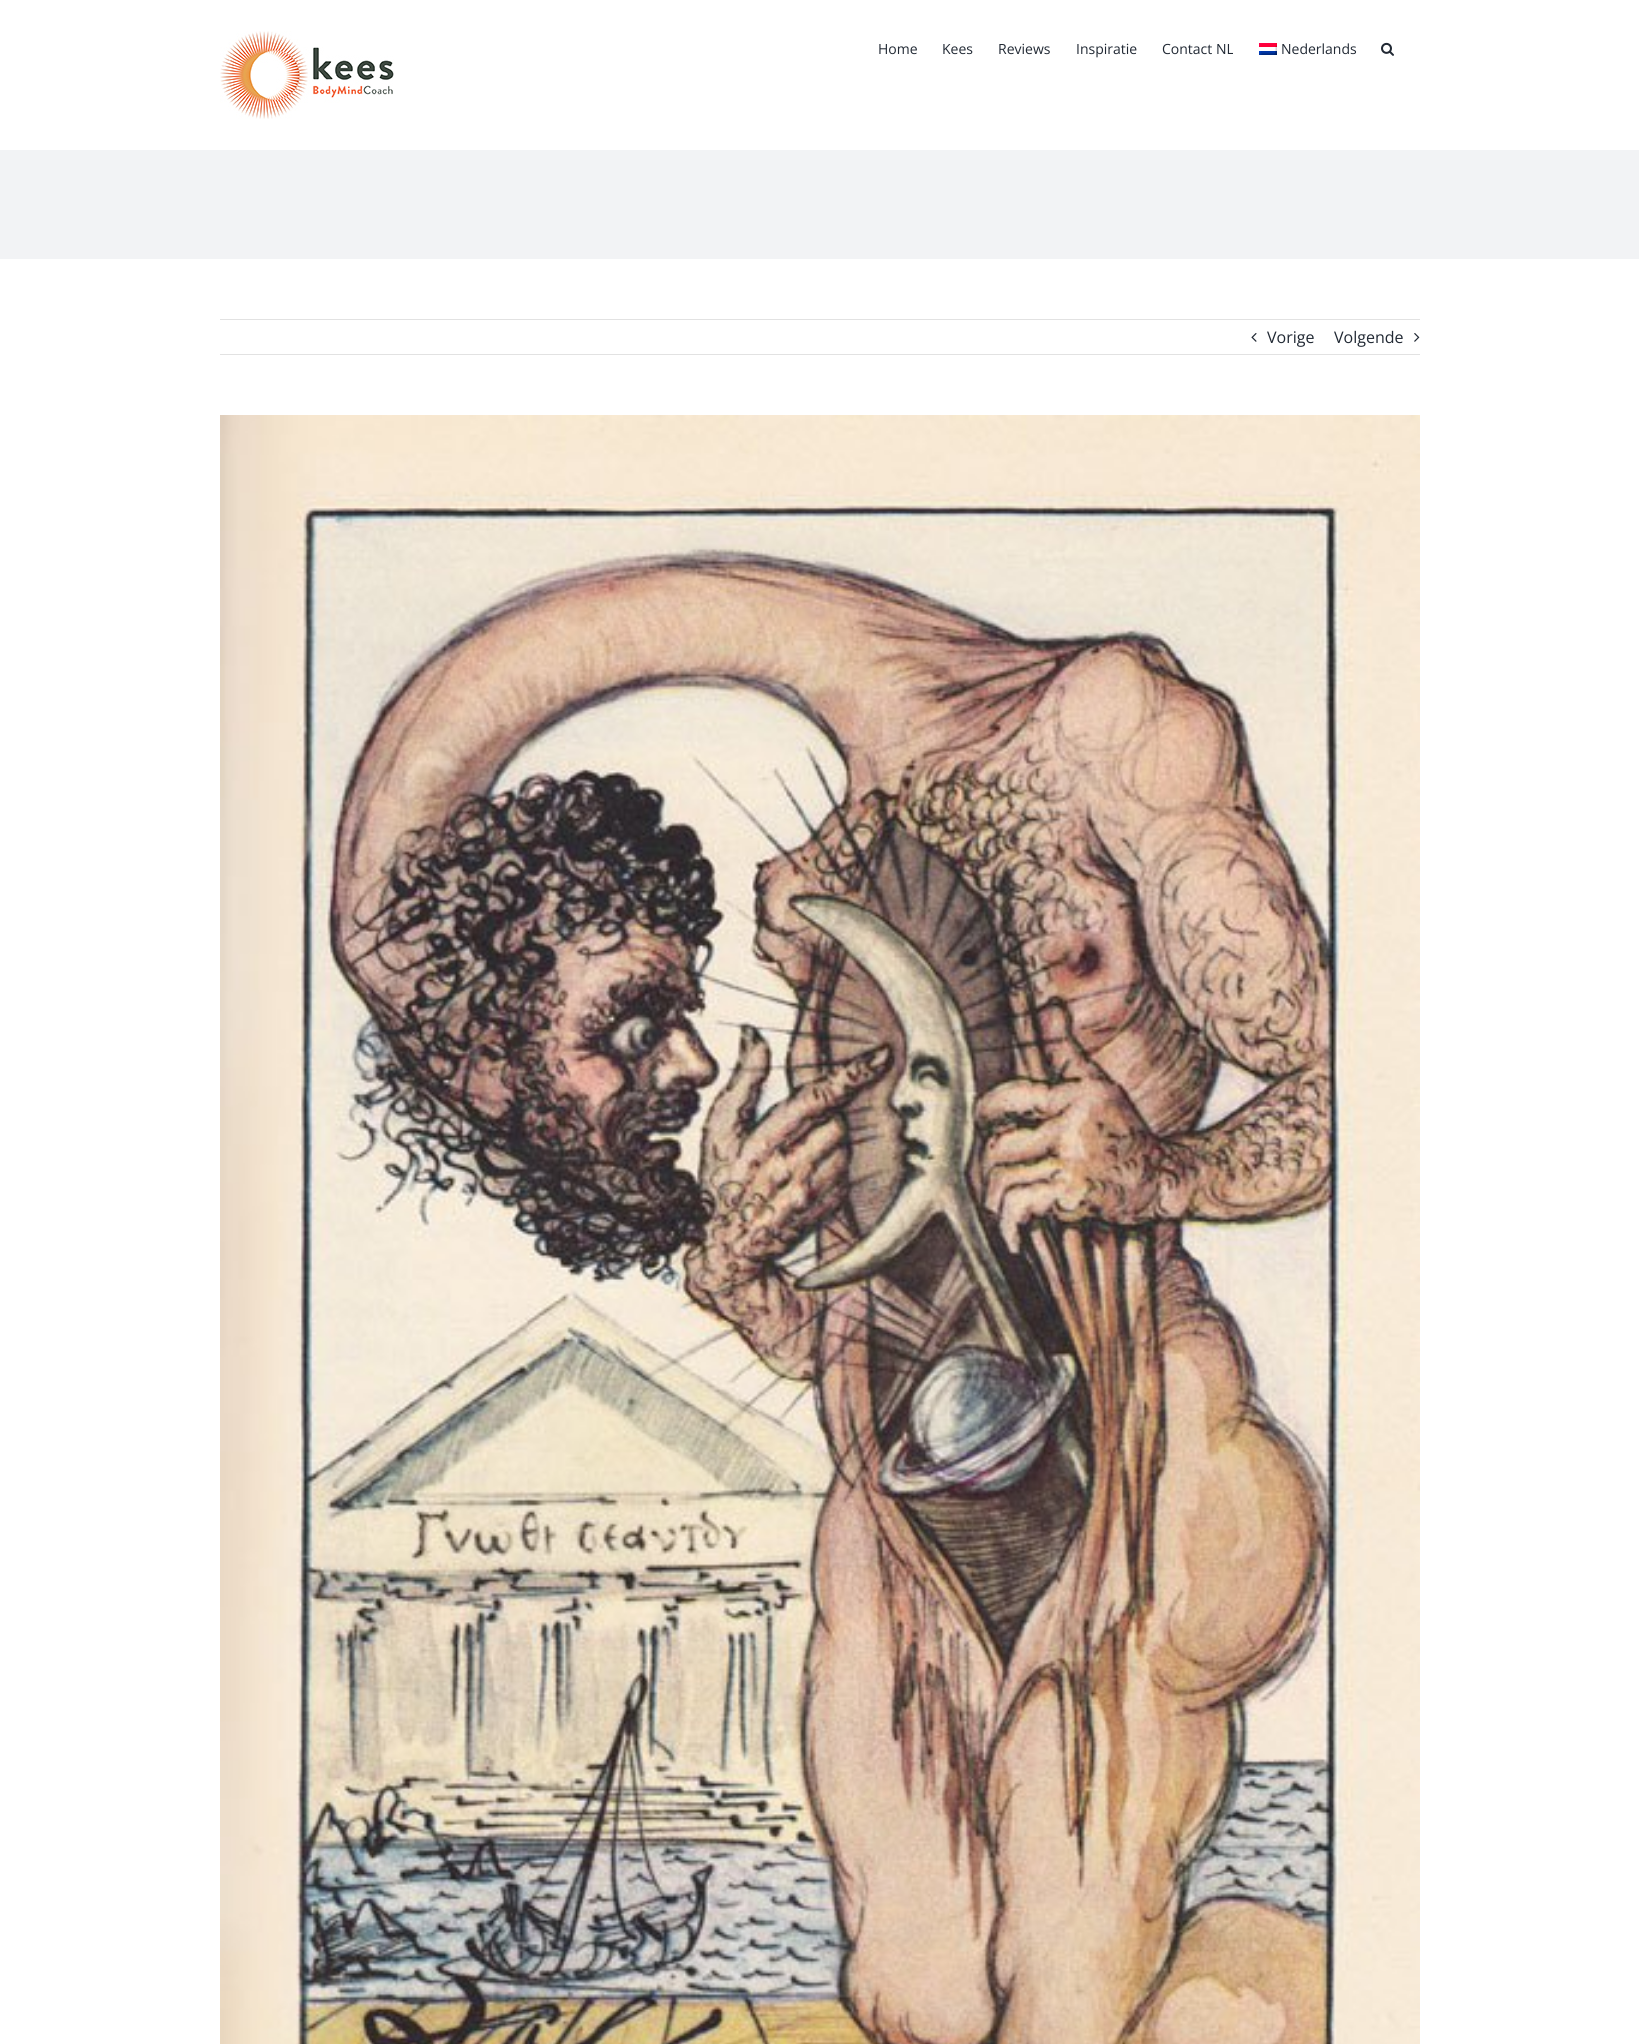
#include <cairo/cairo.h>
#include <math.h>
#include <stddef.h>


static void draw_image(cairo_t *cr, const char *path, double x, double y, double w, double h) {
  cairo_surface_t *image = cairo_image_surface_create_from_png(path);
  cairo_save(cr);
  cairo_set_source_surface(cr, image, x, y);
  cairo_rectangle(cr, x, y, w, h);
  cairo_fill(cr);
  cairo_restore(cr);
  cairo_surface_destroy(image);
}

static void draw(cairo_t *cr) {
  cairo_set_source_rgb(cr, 1, 1, 1);
  cairo_paint(cr);
  draw_image(cr, "images/1.png", 220, 31, 174, 88);
  draw_image(cr, "images/2.png", 1259, 43, 18, 12);
  draw_image(cr, "images/3.png", 1381, 42, 13, 14);
  cairo_set_source_rgb(cr, 242 / 255.0, 243 / 255.0, 245 / 255.0);
  cairo_rectangle(cr, 0, 150, 1639, 109);
  cairo_fill(cr);
  cairo_set_source_rgb(cr, 226 / 255.0, 226 / 255.0, 226 / 255.0);
  cairo_rectangle(cr, 220, 319, 1200, 1);
  cairo_fill(cr);
  cairo_rectangle(cr, 220, 354, 1200, 1);
  cairo_fill(cr);
  draw_image(cr, "images/4.png", 1251, 333, 6, 9);
  draw_image(cr, "images/5.png", 1414, 333, 6, 9);
  draw_image(cr, "images/6.png", 220, 415, 1200, 1629);
  cairo_select_font_face(cr, "Open Sans", CAIRO_FONT_SLANT_NORMAL, CAIRO_FONT_WEIGHT_NORMAL);
  cairo_set_font_size(cr, 14);
  cairo_set_source_rgb(cr, 33 / 255.0, 41 / 255.0, 52 / 255.0);
  cairo_move_to(cr, 878, 54);
  cairo_show_text(cr, "Home");
  cairo_move_to(cr, 942, 54);
  cairo_show_text(cr, "Kees");
  cairo_move_to(cr, 998, 54);
  cairo_show_text(cr, "Reviews");
  cairo_move_to(cr, 1076, 54);
  cairo_show_text(cr, "Inspiratie");
  cairo_move_to(cr, 1162, 54);
  cairo_show_text(cr, "Contact NL");
  cairo_move_to(cr, 1281, 54);
  cairo_show_text(cr, "Nederlands");
  cairo_set_font_size(cr, 16);
  cairo_move_to(cr, 1267, 343);
  cairo_show_text(cr, "Vorige");
  cairo_move_to(cr, 1334, 343);
  cairo_show_text(cr, "Volgende");
}

int main(void) {
  cairo_surface_t *surface = cairo_image_surface_create(CAIRO_FORMAT_RGB24, 1639, 2044);
  cairo_t *cr = cairo_create(surface);
  cairo_font_options_t *options = cairo_font_options_create();
  cairo_font_options_set_hint_metrics(options, CAIRO_HINT_METRICS_OFF);
  cairo_font_options_set_hint_style(options, CAIRO_HINT_STYLE_NONE);
  cairo_set_font_options(cr, options);
  cairo_set_miter_limit(cr, 4);
  draw(cr);
  cairo_surface_write_to_png(surface, "out.png");
  cairo_font_options_destroy(options);
  cairo_destroy(cr);
  cairo_surface_destroy(surface);
  return 0;
}
